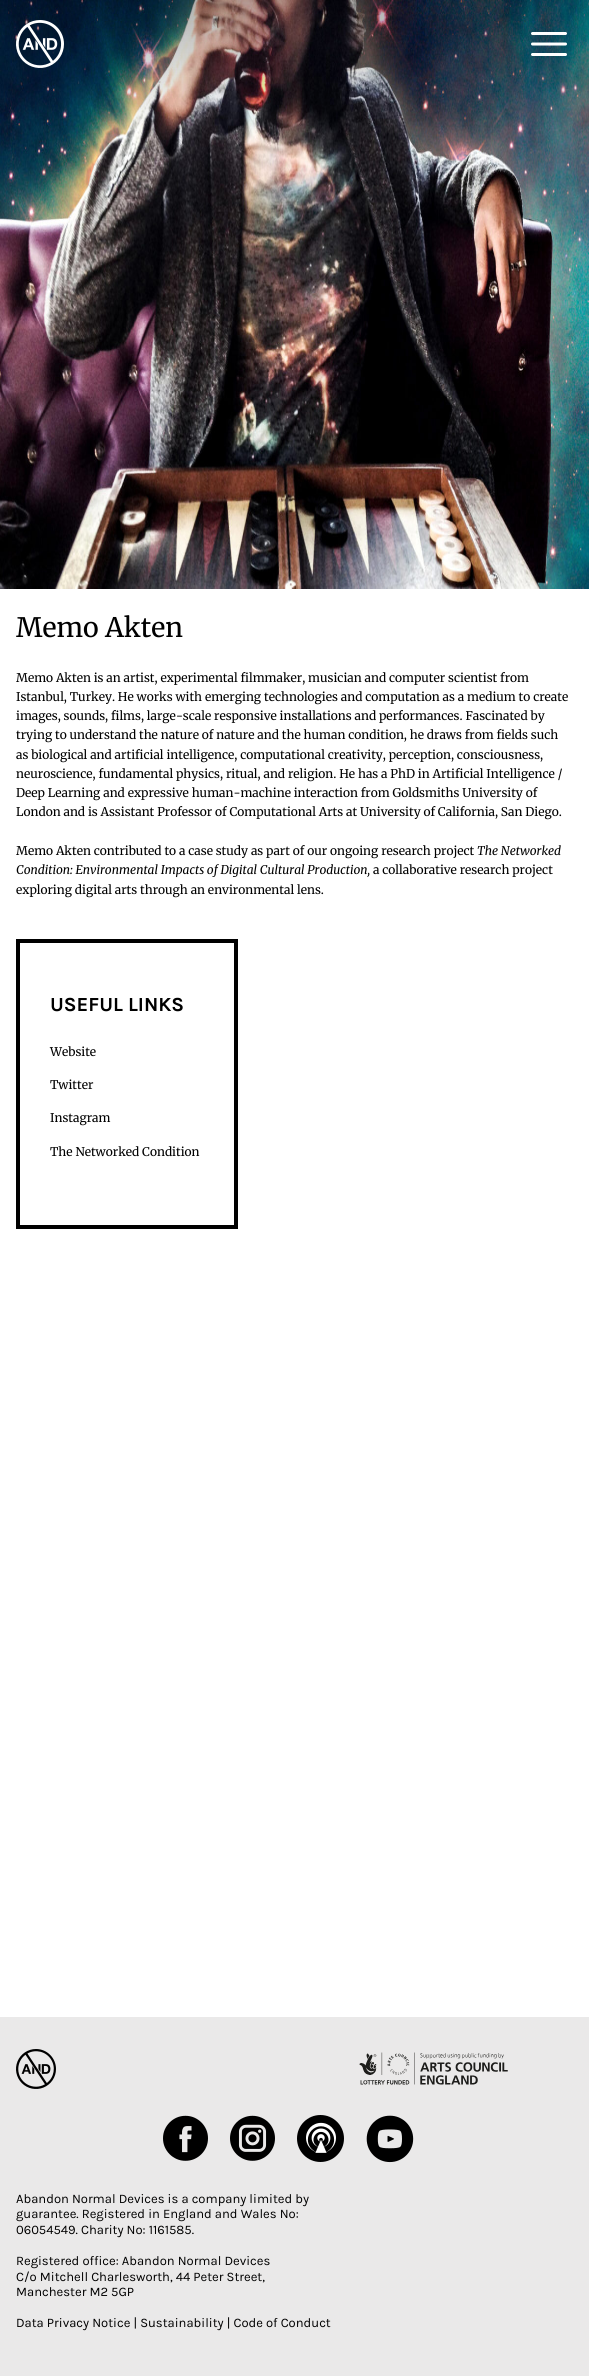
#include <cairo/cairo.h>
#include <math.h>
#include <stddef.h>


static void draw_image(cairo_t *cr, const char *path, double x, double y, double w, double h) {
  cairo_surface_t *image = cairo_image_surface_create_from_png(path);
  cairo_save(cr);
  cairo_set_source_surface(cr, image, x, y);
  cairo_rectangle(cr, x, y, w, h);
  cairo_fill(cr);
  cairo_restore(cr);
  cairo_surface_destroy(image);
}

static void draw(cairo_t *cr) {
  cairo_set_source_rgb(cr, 1, 1, 1);
  cairo_paint(cr);
  draw_image(cr, "images/1.png", 0, 0, 589, 589);
  draw_image(cr, "images/2.png", 16, 20, 48, 48);
  cairo_new_path(cr);
  cairo_move_to(cr, 532.5, 33.5);
  cairo_line_to(cr, 565.5, 33.5);
  cairo_move_to(cr, 532.5, 44);
  cairo_line_to(cr, 565.5, 44);
  cairo_move_to(cr, 532.5, 54.5);
  cairo_line_to(cr, 565.5, 54.5);
  cairo_set_source_rgb(cr, 1, 1, 1);
  cairo_set_line_width(cr, 3);
  cairo_set_line_cap(cr, CAIRO_LINE_CAP_ROUND);
  cairo_set_line_join(cr, CAIRO_LINE_JOIN_ROUND);
  cairo_stroke(cr);
  cairo_rectangle(cr, 18, 941, 218, 286);
  cairo_set_source_rgb(cr, 0, 0, 0);
  cairo_set_line_width(cr, 4);
  cairo_set_line_cap(cr, CAIRO_LINE_CAP_BUTT);
  cairo_set_line_join(cr, CAIRO_LINE_JOIN_MITER);
  cairo_stroke(cr);
  cairo_set_source_rgb(cr, 234 / 255.0, 233 / 255.0, 233 / 255.0);
  cairo_rectangle(cr, 0, 2017, 589, 359);
  cairo_fill(cr);
  draw_image(cr, "images/3.png", 16, 2049, 40, 40);
  draw_image(cr, "images/4.png", 359, 2052, 149, 33);
  draw_image(cr, "images/5.png", 163, 2115, 45, 46);
  draw_image(cr, "images/6.png", 230, 2115, 45, 46);
  cairo_set_source_rgb(cr, 0, 0, 0);
  cairo_arc(cr, 320.5, 2138.5, 23.5, 0, 2 * M_PI);
  cairo_fill(cr);
  draw_image(cr, "images/7.png", 306, 2122, 30, 31);
  draw_image(cr, "images/8.png", 366, 2115, 48, 48);
  cairo_select_font_face(cr, "Merriweather", CAIRO_FONT_SLANT_NORMAL, CAIRO_FONT_WEIGHT_NORMAL);
  cairo_set_font_size(cr, 26.75);
  cairo_move_to(cr, 16, 637);
  cairo_show_text(cr, "Memo Akten");
  cairo_set_font_size(cr, 12);
  cairo_move_to(cr, 16, 682);
  cairo_show_text(cr, "Memo Akten is an artist, experimental filmmaker, musician and computer scientist from");
  cairo_move_to(cr, 16, 701);
  cairo_show_text(cr, "Istanbul, Turkey. He works with emerging technologies and computation as a medium to create");
  cairo_move_to(cr, 16, 720);
  cairo_show_text(cr, "images, sounds, films, large-scale responsive installations and performances. Fascinated by");
  cairo_move_to(cr, 16, 739);
  cairo_show_text(cr, "trying to understand the nature of nature and the human condition, he draws from fields such");
  cairo_move_to(cr, 16, 759);
  cairo_show_text(cr, "as biological and artificial intelligence, computational creativity, perception, consciousness,");
  cairo_move_to(cr, 16, 778);
  cairo_show_text(cr, "neuroscience, fundamental physics, ritual, and religion. He has a PhD in Artificial Intelligence /");
  cairo_move_to(cr, 16, 797);
  cairo_show_text(cr, "Deep Learning and expressive human-machine interaction from Goldsmiths University of");
  cairo_move_to(cr, 16, 816);
  cairo_show_text(cr, "London and is Assistant Professor of Computational Arts at University of California, San Diego.");
  cairo_move_to(cr, 16, 855);
  cairo_show_text(cr, "Memo Akten contributed to a case study as part of our ongoing research project");
  cairo_select_font_face(cr, "Merriweather", CAIRO_FONT_SLANT_ITALIC, CAIRO_FONT_WEIGHT_NORMAL);
  cairo_move_to(cr, 477, 855);
  cairo_show_text(cr, "The Networked");
  cairo_move_to(cr, 16, 874);
  cairo_show_text(cr, "Condition: Environmental Impacts of Digital Cultural Production,");
  cairo_select_font_face(cr, "Merriweather", CAIRO_FONT_SLANT_NORMAL, CAIRO_FONT_WEIGHT_NORMAL);
  cairo_move_to(cr, 373, 874);
  cairo_show_text(cr, "a collaborative research project");
  cairo_move_to(cr, 16, 894);
  cairo_show_text(cr, "exploring digital arts through an environmental lens.");
  cairo_select_font_face(cr, "Karla", CAIRO_FONT_SLANT_NORMAL, CAIRO_FONT_WEIGHT_BOLD);
  cairo_set_font_size(cr, 20);
  cairo_move_to(cr, 50, 1011);
  cairo_show_text(cr, "USEFUL LINKS");
  cairo_select_font_face(cr, "Merriweather", CAIRO_FONT_SLANT_NORMAL, CAIRO_FONT_WEIGHT_NORMAL);
  cairo_set_font_size(cr, 12);
  cairo_move_to(cr, 50, 1056);
  cairo_show_text(cr, "Website");
  cairo_move_to(cr, 50, 1089);
  cairo_show_text(cr, "Twitter");
  cairo_move_to(cr, 50, 1122);
  cairo_show_text(cr, "Instagram");
  cairo_move_to(cr, 50, 1156);
  cairo_show_text(cr, "The Networked Condition");
  cairo_select_font_face(cr, "Karla", CAIRO_FONT_SLANT_NORMAL, CAIRO_FONT_WEIGHT_NORMAL);
  cairo_set_font_size(cr, 13);
  cairo_move_to(cr, 16, 2203);
  cairo_show_text(cr, "Abandon Normal Devices is a company limited by");
  cairo_move_to(cr, 16, 2218);
  cairo_show_text(cr, "guarantee. Registered in England and Wales No:");
  cairo_move_to(cr, 16, 2234);
  cairo_show_text(cr, "06054549. Charity No: 1161585.");
  cairo_move_to(cr, 16, 2265);
  cairo_show_text(cr, "Registered office: Abandon Normal Devices");
  cairo_move_to(cr, 16, 2281);
  cairo_show_text(cr, "C/o Mitchell Charlesworth, 44 Peter Street,");
  cairo_move_to(cr, 16, 2296);
  cairo_show_text(cr, "Manchester M2 5GP");
  cairo_move_to(cr, 16, 2327);
  cairo_show_text(cr, "Data Privacy Notice | Sustainability | Code of Conduct");
}

int main(void) {
  cairo_surface_t *surface = cairo_image_surface_create(CAIRO_FORMAT_RGB24, 589, 2376);
  cairo_t *cr = cairo_create(surface);
  cairo_font_options_t *options = cairo_font_options_create();
  cairo_font_options_set_hint_metrics(options, CAIRO_HINT_METRICS_OFF);
  cairo_font_options_set_hint_style(options, CAIRO_HINT_STYLE_NONE);
  cairo_set_font_options(cr, options);
  cairo_set_miter_limit(cr, 4);
  draw(cr);
  cairo_surface_write_to_png(surface, "out.png");
  cairo_font_options_destroy(options);
  cairo_destroy(cr);
  cairo_surface_destroy(surface);
  return 0;
}
